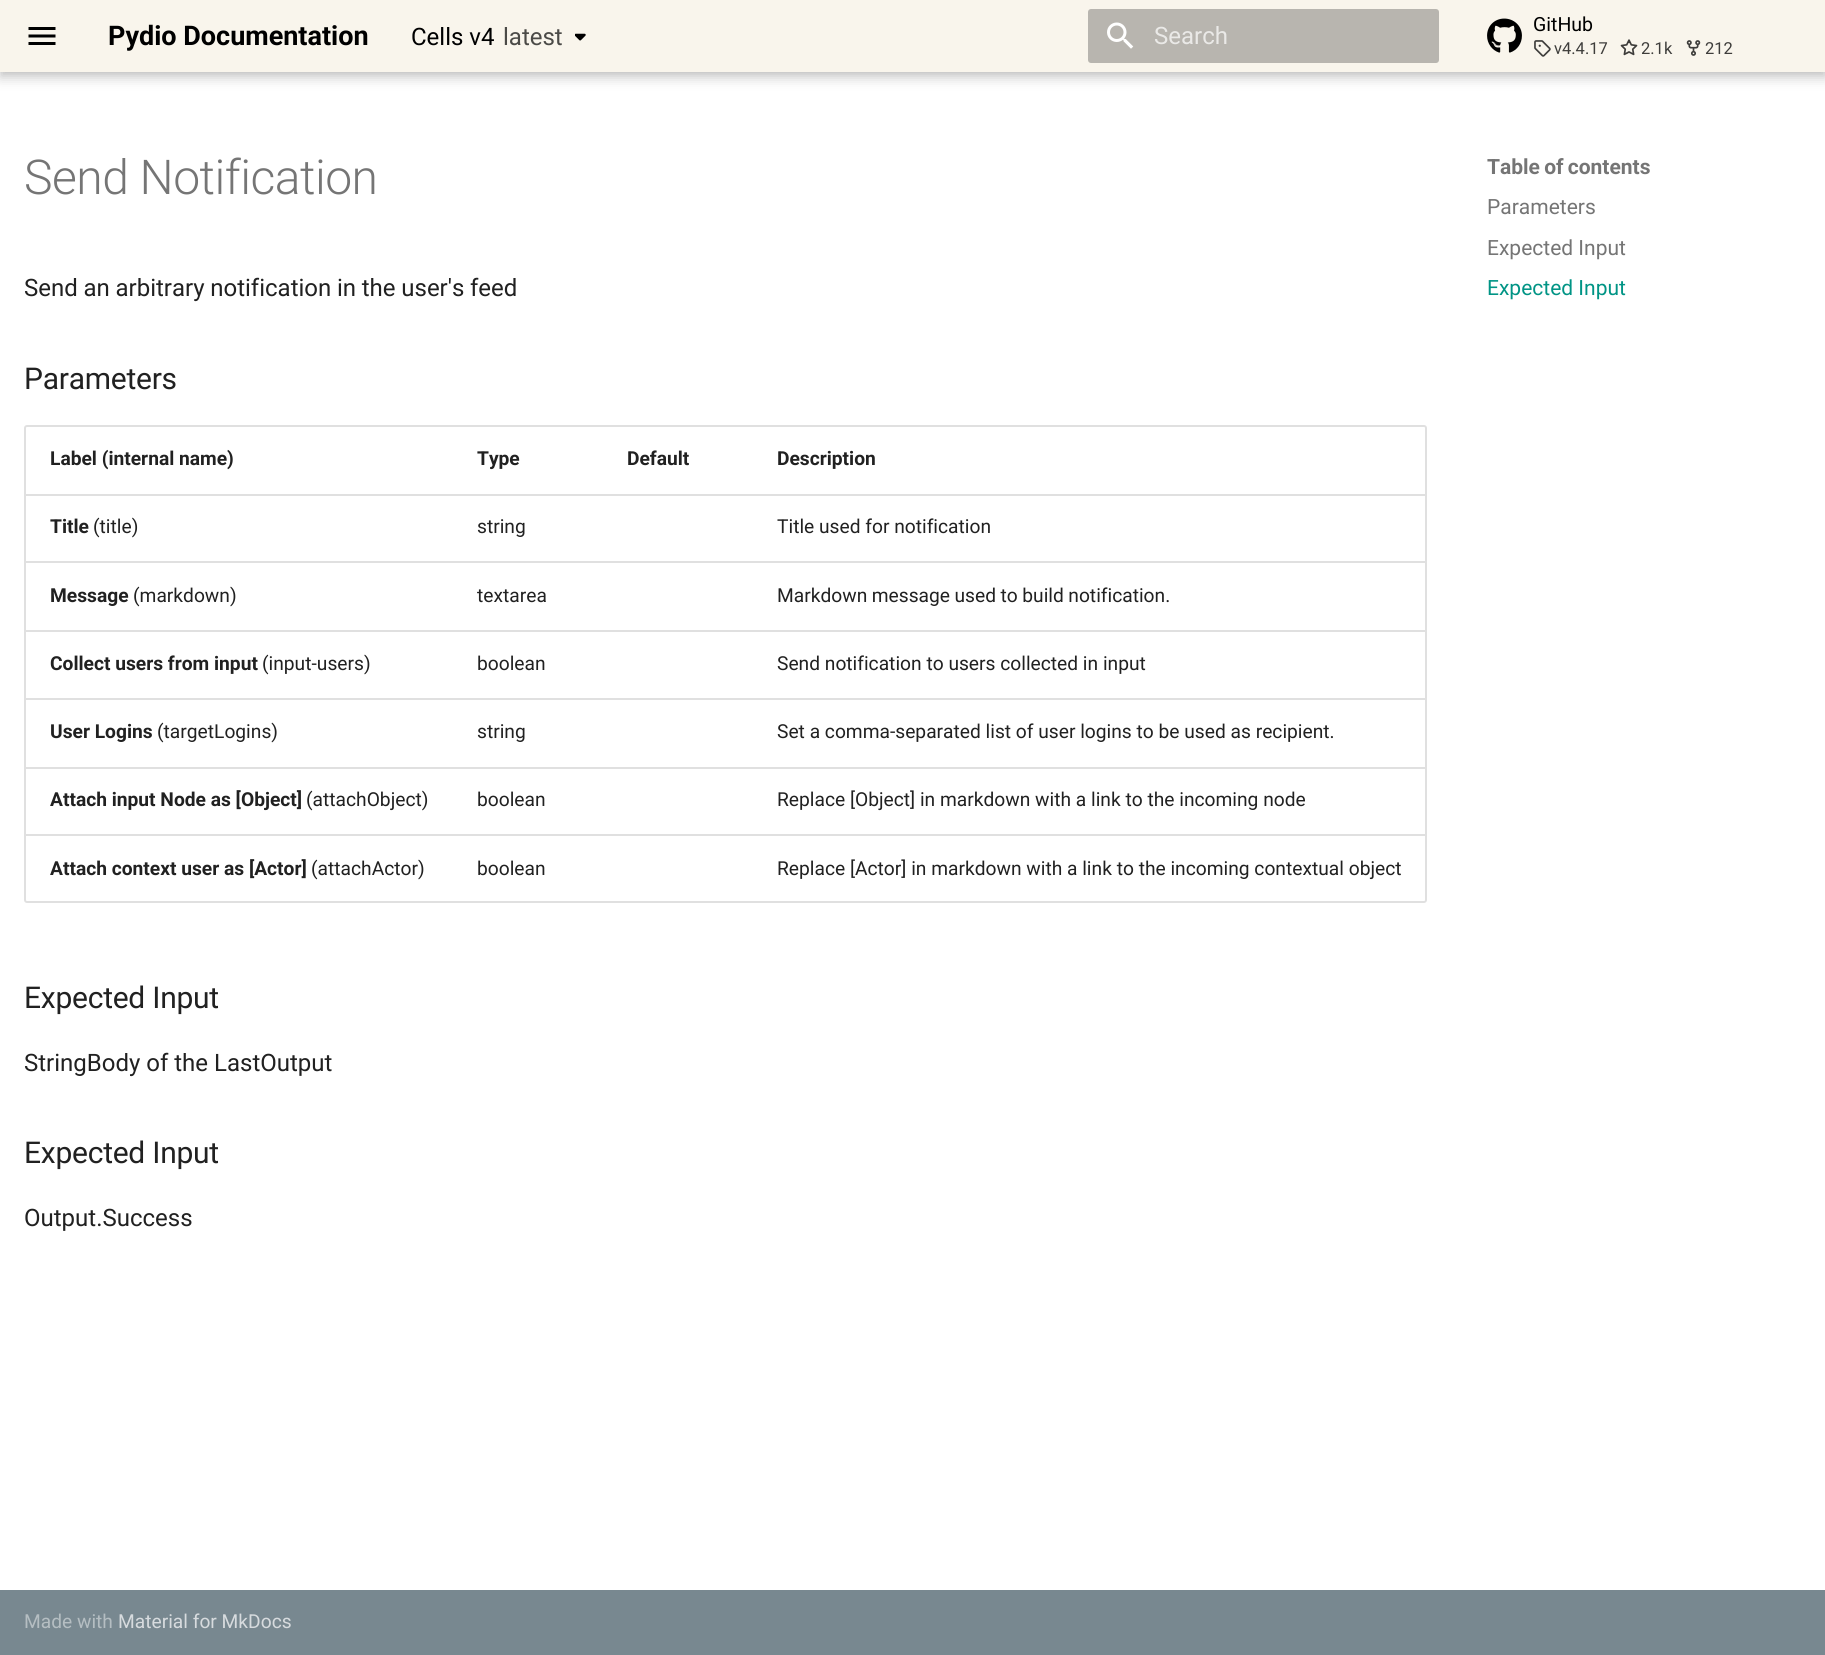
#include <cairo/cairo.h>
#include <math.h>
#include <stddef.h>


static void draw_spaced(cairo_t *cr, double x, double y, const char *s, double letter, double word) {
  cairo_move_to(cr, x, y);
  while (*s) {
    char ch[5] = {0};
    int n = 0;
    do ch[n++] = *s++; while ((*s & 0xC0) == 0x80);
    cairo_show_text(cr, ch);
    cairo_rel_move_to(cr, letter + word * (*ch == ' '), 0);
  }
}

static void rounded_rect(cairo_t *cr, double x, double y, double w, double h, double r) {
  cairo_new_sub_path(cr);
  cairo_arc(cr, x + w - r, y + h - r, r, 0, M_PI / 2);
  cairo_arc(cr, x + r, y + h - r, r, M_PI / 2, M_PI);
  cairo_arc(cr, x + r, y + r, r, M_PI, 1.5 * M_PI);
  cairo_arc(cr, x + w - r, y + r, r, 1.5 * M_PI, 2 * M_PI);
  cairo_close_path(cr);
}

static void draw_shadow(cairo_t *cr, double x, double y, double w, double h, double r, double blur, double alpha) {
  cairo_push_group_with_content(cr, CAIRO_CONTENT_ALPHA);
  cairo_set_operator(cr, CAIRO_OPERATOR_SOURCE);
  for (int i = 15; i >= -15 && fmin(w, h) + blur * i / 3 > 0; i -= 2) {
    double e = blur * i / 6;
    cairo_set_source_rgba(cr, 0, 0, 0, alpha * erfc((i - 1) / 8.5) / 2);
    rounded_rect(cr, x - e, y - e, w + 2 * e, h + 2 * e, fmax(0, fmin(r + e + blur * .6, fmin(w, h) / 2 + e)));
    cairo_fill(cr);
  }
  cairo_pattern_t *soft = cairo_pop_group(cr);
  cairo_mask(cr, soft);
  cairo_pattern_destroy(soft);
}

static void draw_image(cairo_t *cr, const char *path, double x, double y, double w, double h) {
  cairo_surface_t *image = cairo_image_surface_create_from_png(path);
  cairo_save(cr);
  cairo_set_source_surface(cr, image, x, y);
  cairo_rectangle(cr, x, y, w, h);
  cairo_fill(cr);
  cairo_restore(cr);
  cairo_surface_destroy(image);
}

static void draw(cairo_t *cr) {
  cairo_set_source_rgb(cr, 1, 1, 1);
  cairo_paint(cr);
  cairo_set_source_rgb(cr, 0, 0, 0);
  draw_shadow(cr, 0, 6, 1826, 72, 0, 6, 0.2);
  draw_shadow(cr, 0, 0, 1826, 72, 0, 3, 0.1);
  cairo_set_source_rgb(cr, 249 / 255.0, 245 / 255.0, 236 / 255.0);
  cairo_rectangle(cr, 0, 0, 1825, 72);
  cairo_fill(cr);
  draw_image(cr, "images/1.png", 28, 27, 28, 18);
  draw_image(cr, "images/2.png", 575, 33, 11, 8);
  cairo_set_source_rgb(cr, 184 / 255.0, 181 / 255.0, 175 / 255.0);
  rounded_rect(cr, 1088, 9, 351, 54, 3);
  cairo_fill(cr);
  draw_image(cr, "images/3.png", 1107, 22, 27, 27);
  draw_image(cr, "images/4.png", 1487, 18, 35, 35);
  draw_image(cr, "images/5.png", 1534, 40, 17, 17);
  draw_image(cr, "images/6.png", 1620, 39, 18, 17);
  draw_image(cr, "images/7.png", 1686, 40, 15, 16);
  rounded_rect(cr, 25, 426, 1401, 476, 2);
  cairo_set_source_rgb(cr, 224 / 255.0, 224 / 255.0, 224 / 255.0);
  cairo_stroke(cr);
  cairo_rectangle(cr, 26, 494, 1399, 2);
  cairo_fill(cr);
  cairo_rectangle(cr, 26, 561, 1399, 2);
  cairo_fill(cr);
  cairo_rectangle(cr, 26, 630, 1399, 2);
  cairo_fill(cr);
  cairo_rectangle(cr, 26, 698, 1399, 2);
  cairo_fill(cr);
  cairo_rectangle(cr, 26, 767, 1399, 2);
  cairo_fill(cr);
  cairo_rectangle(cr, 26, 834, 1399, 2);
  cairo_fill(cr);
  cairo_save(cr);
  cairo_rectangle(cr, 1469, 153, 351, 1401);
  cairo_clip(cr);
  cairo_set_fill_rule(cr, CAIRO_FILL_RULE_EVEN_ODD);
  cairo_new_path(cr);
  cairo_move_to(cr, 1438, 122);
  cairo_line_to(cr, 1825, 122);
  cairo_line_to(cr, 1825, 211);
  cairo_line_to(cr, 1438, 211);
  cairo_close_path(cr);
  cairo_move_to(cr, 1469, 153);
  cairo_line_to(cr, 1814, 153);
  cairo_line_to(cr, 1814, 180);
  cairo_line_to(cr, 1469, 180);
  cairo_close_path(cr);
  cairo_clip(cr);
  cairo_set_source_rgb(cr, 1, 1, 1);
  draw_shadow(cr, 1457, 141, 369, 51, 0, 6, 1);
  cairo_restore(cr);
  cairo_set_source_rgb(cr, 120 / 255.0, 136 / 255.0, 144 / 255.0);
  cairo_rectangle(cr, 0, 1590, 1825, 65);
  cairo_fill(cr);
  cairo_select_font_face(cr, "Roboto", CAIRO_FONT_SLANT_NORMAL, CAIRO_FONT_WEIGHT_BOLD);
  cairo_set_font_size(cr, 27);
  cairo_set_source_rgb(cr, 0, 0, 0);
  cairo_move_to(cr, 108, 45);
  cairo_show_text(cr, "Pydio Documentation");
  cairo_select_font_face(cr, "Roboto", CAIRO_FONT_SLANT_NORMAL, CAIRO_FONT_WEIGHT_NORMAL);
  cairo_set_font_size(cr, 24);
  cairo_move_to(cr, 411, 45);
  cairo_show_text(cr, "Cells v4");
  cairo_set_source_rgb(cr, 75 / 255.0, 74 / 255.0, 71 / 255.0);
  cairo_move_to(cr, 503, 45);
  cairo_show_text(cr, "latest");
  cairo_set_source_rgb(cr, 234 / 255.0, 233 / 255.0, 231 / 255.0);
  cairo_move_to(cr, 1154, 44);
  cairo_show_text(cr, "Search");
  cairo_set_font_size(cr, 19.5);
  cairo_set_source_rgb(cr, 0, 0, 0);
  cairo_move_to(cr, 1533, 31);
  cairo_show_text(cr, "GitHub");
  cairo_set_font_size(cr, 16.5);
  cairo_set_source_rgb(cr, 62 / 255.0, 61 / 255.0, 59 / 255.0);
  cairo_move_to(cr, 1554, 54);
  cairo_show_text(cr, "v4.4.17");
  cairo_move_to(cr, 1641, 54);
  cairo_show_text(cr, "2.1k");
  cairo_move_to(cr, 1705, 54);
  cairo_show_text(cr, "212");
  cairo_select_font_face(cr, "Roboto Light", CAIRO_FONT_SLANT_NORMAL, CAIRO_FONT_WEIGHT_NORMAL);
  cairo_set_font_size(cr, 48);
  cairo_set_source_rgb(cr, 117 / 255.0, 117 / 255.0, 117 / 255.0);
  draw_spaced(cr, 24, 194, "Send Notification", -0.5, 0);
  cairo_select_font_face(cr, "Roboto", CAIRO_FONT_SLANT_NORMAL, CAIRO_FONT_WEIGHT_NORMAL);
  cairo_set_font_size(cr, 24);
  cairo_set_source_rgb(cr, 33 / 255.0, 33 / 255.0, 33 / 255.0);
  draw_spaced(cr, 24, 296, "Send an arbitrary notification in the user's feed", 0, -0.25);
  cairo_set_font_size(cr, 30);
  draw_spaced(cr, 24, 389, "Parameters", -0.25, 0);
  cairo_select_font_face(cr, "Roboto", CAIRO_FONT_SLANT_NORMAL, CAIRO_FONT_WEIGHT_BOLD);
  cairo_set_font_size(cr, 19.2);
  cairo_move_to(cr, 50, 465);
  cairo_show_text(cr, "Label (internal name)");
  cairo_move_to(cr, 477, 465);
  cairo_show_text(cr, "Type");
  cairo_move_to(cr, 627, 465);
  cairo_show_text(cr, "Default");
  cairo_move_to(cr, 777, 465);
  cairo_show_text(cr, "Description");
  cairo_move_to(cr, 50, 533);
  cairo_show_text(cr, "Title");
  cairo_select_font_face(cr, "Roboto", CAIRO_FONT_SLANT_NORMAL, CAIRO_FONT_WEIGHT_NORMAL);
  cairo_move_to(cr, 93, 533);
  cairo_show_text(cr, "(title)");
  cairo_move_to(cr, 477, 533);
  cairo_show_text(cr, "string");
  cairo_move_to(cr, 777, 533);
  cairo_show_text(cr, "Title used for notification");
  cairo_select_font_face(cr, "Roboto", CAIRO_FONT_SLANT_NORMAL, CAIRO_FONT_WEIGHT_BOLD);
  cairo_move_to(cr, 50, 602);
  cairo_show_text(cr, "Message");
  cairo_select_font_face(cr, "Roboto", CAIRO_FONT_SLANT_NORMAL, CAIRO_FONT_WEIGHT_NORMAL);
  cairo_move_to(cr, 133, 602);
  cairo_show_text(cr, "(markdown)");
  cairo_move_to(cr, 477, 602);
  cairo_show_text(cr, "textarea");
  draw_spaced(cr, 777, 602, "Markdown message used to build notification.", 0, -0.25);
  cairo_select_font_face(cr, "Roboto", CAIRO_FONT_SLANT_NORMAL, CAIRO_FONT_WEIGHT_BOLD);
  cairo_move_to(cr, 50, 670);
  cairo_show_text(cr, "Collect users from input");
  cairo_select_font_face(cr, "Roboto", CAIRO_FONT_SLANT_NORMAL, CAIRO_FONT_WEIGHT_NORMAL);
  cairo_move_to(cr, 262, 670);
  cairo_show_text(cr, "(input-users)");
  cairo_move_to(cr, 477, 670);
  cairo_show_text(cr, "boolean");
  cairo_move_to(cr, 777, 670);
  cairo_show_text(cr, "Send notification to users collected in input");
  cairo_select_font_face(cr, "Roboto", CAIRO_FONT_SLANT_NORMAL, CAIRO_FONT_WEIGHT_BOLD);
  cairo_move_to(cr, 50, 738);
  cairo_show_text(cr, "User Logins");
  cairo_select_font_face(cr, "Roboto", CAIRO_FONT_SLANT_NORMAL, CAIRO_FONT_WEIGHT_NORMAL);
  cairo_move_to(cr, 157, 738);
  cairo_show_text(cr, "(targetLogins)");
  cairo_move_to(cr, 477, 738);
  cairo_show_text(cr, "string");
  cairo_move_to(cr, 777, 738);
  cairo_show_text(cr, "Set a comma-separated list of user logins to be used as recipient.");
  cairo_select_font_face(cr, "Roboto", CAIRO_FONT_SLANT_NORMAL, CAIRO_FONT_WEIGHT_BOLD);
  cairo_move_to(cr, 50, 806);
  cairo_show_text(cr, "Attach input Node as [Object]");
  cairo_select_font_face(cr, "Roboto", CAIRO_FONT_SLANT_NORMAL, CAIRO_FONT_WEIGHT_NORMAL);
  cairo_move_to(cr, 306, 806);
  cairo_show_text(cr, "(attachObject)");
  cairo_move_to(cr, 477, 806);
  cairo_show_text(cr, "boolean");
  cairo_move_to(cr, 777, 806);
  cairo_show_text(cr, "Replace [Object] in markdown with a link to the incoming node");
  cairo_select_font_face(cr, "Roboto", CAIRO_FONT_SLANT_NORMAL, CAIRO_FONT_WEIGHT_BOLD);
  cairo_move_to(cr, 50, 875);
  cairo_show_text(cr, "Attach context user as [Actor]");
  cairo_select_font_face(cr, "Roboto", CAIRO_FONT_SLANT_NORMAL, CAIRO_FONT_WEIGHT_NORMAL);
  cairo_move_to(cr, 311, 875);
  cairo_show_text(cr, "(attachActor)");
  cairo_move_to(cr, 477, 875);
  cairo_show_text(cr, "boolean");
  cairo_move_to(cr, 777, 875);
  cairo_show_text(cr, "Replace [Actor] in markdown with a link to the incoming contextual object");
  cairo_set_font_size(cr, 30);
  draw_spaced(cr, 24, 1008, "Expected Input", -0.25, 0);
  cairo_set_font_size(cr, 24);
  cairo_move_to(cr, 24, 1071);
  cairo_show_text(cr, "StringBody of the LastOutput");
  cairo_set_font_size(cr, 30);
  draw_spaced(cr, 24, 1163, "Expected Input", -0.25, 0);
  cairo_set_font_size(cr, 24);
  cairo_move_to(cr, 24, 1226);
  cairo_show_text(cr, "Output.Success");
  cairo_select_font_face(cr, "Roboto", CAIRO_FONT_SLANT_NORMAL, CAIRO_FONT_WEIGHT_BOLD);
  cairo_set_font_size(cr, 21);
  cairo_set_source_rgb(cr, 117 / 255.0, 117 / 255.0, 117 / 255.0);
  draw_spaced(cr, 1487, 174, "Table of contents", 0, -1);
  cairo_select_font_face(cr, "Roboto", CAIRO_FONT_SLANT_NORMAL, CAIRO_FONT_WEIGHT_NORMAL);
  cairo_move_to(cr, 1487, 214);
  cairo_show_text(cr, "Parameters");
  cairo_move_to(cr, 1487, 255);
  cairo_show_text(cr, "Expected Input");
  cairo_set_source_rgb(cr, 0, 148 / 255.0, 133 / 255.0);
  cairo_move_to(cr, 1487, 295);
  cairo_show_text(cr, "Expected Input");
  cairo_set_font_size(cr, 19.2);
  cairo_set_source_rgb(cr, 181 / 255.0, 190 / 255.0, 194 / 255.0);
  cairo_move_to(cr, 24, 1628);
  cairo_show_text(cr, "Made with");
  cairo_set_source_rgb(cr, 215 / 255.0, 219 / 255.0, 222 / 255.0);
  cairo_move_to(cr, 118, 1628);
  cairo_show_text(cr, "Material for MkDocs");
}

int main(void) {
  cairo_surface_t *surface = cairo_image_surface_create(CAIRO_FORMAT_RGB24, 1825, 1655);
  cairo_t *cr = cairo_create(surface);
  cairo_font_options_t *options = cairo_font_options_create();
  cairo_font_options_set_hint_metrics(options, CAIRO_HINT_METRICS_OFF);
  cairo_font_options_set_hint_style(options, CAIRO_HINT_STYLE_NONE);
  cairo_set_font_options(cr, options);
  cairo_set_miter_limit(cr, 4);
  draw(cr);
  cairo_surface_write_to_png(surface, "out.png");
  cairo_font_options_destroy(options);
  cairo_destroy(cr);
  cairo_surface_destroy(surface);
  return 0;
}
